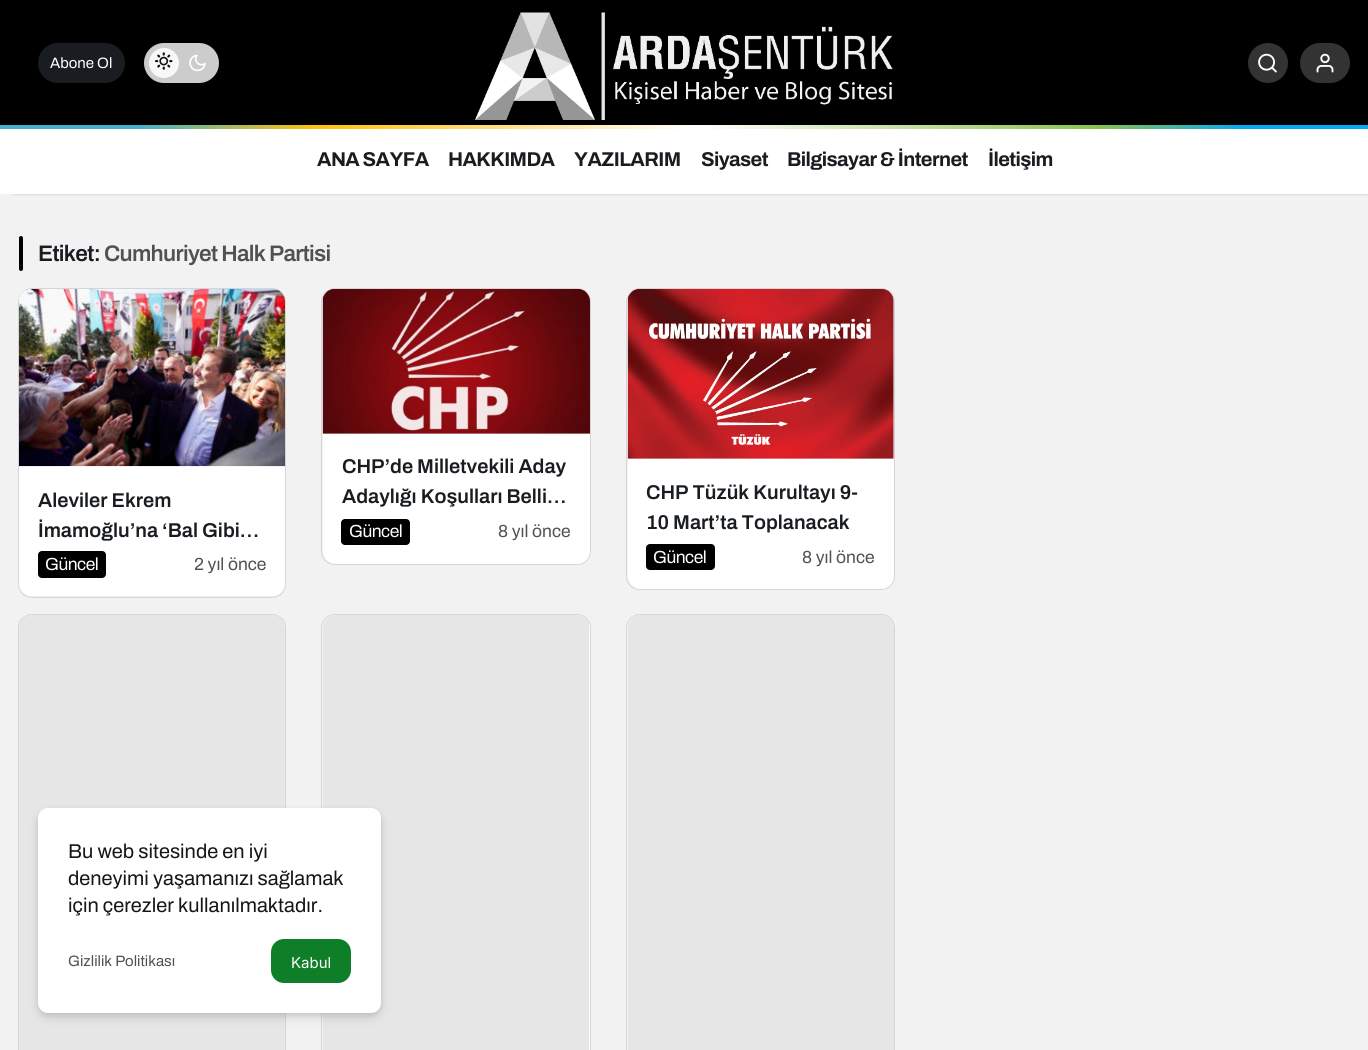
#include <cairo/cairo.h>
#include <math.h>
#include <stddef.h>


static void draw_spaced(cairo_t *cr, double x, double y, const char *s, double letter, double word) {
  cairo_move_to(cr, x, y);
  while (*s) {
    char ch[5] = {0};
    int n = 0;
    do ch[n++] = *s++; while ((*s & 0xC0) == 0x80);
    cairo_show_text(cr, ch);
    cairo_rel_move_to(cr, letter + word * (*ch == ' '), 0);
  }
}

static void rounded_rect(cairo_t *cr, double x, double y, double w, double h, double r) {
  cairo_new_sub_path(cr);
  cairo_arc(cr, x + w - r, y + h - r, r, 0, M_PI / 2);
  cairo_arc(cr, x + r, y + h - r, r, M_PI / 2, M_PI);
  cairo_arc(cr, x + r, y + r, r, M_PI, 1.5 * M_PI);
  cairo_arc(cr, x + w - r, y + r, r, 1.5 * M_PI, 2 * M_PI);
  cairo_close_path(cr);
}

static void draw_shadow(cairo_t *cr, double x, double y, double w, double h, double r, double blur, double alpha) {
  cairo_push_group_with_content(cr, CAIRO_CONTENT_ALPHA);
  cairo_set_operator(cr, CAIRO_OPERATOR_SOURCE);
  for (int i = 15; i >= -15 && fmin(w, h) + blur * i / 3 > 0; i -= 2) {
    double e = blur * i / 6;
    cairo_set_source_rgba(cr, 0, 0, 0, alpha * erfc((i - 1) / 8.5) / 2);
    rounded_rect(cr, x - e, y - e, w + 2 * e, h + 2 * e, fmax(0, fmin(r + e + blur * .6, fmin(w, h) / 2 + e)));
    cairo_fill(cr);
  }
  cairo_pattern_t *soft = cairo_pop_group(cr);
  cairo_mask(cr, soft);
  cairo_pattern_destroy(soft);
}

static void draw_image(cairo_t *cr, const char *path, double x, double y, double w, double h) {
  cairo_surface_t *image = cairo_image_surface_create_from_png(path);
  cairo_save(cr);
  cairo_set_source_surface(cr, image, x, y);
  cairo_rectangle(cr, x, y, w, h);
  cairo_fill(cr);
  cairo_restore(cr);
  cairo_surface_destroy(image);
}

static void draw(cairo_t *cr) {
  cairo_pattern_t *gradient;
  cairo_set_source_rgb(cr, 242 / 255.0, 242 / 255.0, 243 / 255.0);
  cairo_paint(cr);
  cairo_set_source_rgb(cr, 0, 0, 0);
  draw_shadow(cr, 13, 126, 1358, 69, 0, 1, 0.1);
  cairo_set_source_rgb(cr, 0, 0, 0);
  cairo_rectangle(cr, 0, 0, 1368, 125);
  cairo_fill(cr);
  cairo_set_source_rgb(cr, 25 / 255.0, 28 / 255.0, 32 / 255.0);
  rounded_rect(cr, 38, 43, 87, 40, 20);
  cairo_fill(cr);
  cairo_set_source_rgb(cr, 204 / 255.0, 204 / 255.0, 204 / 255.0);
  rounded_rect(cr, 144, 43, 75, 40, 20);
  cairo_fill(cr);
  draw_image(cr, "images/2.png", 155, 53, 18, 18);
  cairo_set_source_rgba(cr, 1, 1, 1, 0.87);
  cairo_arc(cr, 164, 63, 15, 0, 2 * M_PI);
  cairo_fill(cr);
  draw_image(cr, "images/1.png", 155, 52, 18, 18);
  draw_image(cr, "images/3.png", 189, 54, 17, 18);
  draw_image(cr, "images/4.png", 475, 12, 418, 108);
  cairo_set_source_rgb(cr, 51 / 255.0, 51 / 255.0, 51 / 255.0);
  cairo_arc(cr, 1268, 63, 20, 0, 2 * M_PI);
  cairo_fill(cr);
  draw_image(cr, "images/5.png", 1258, 53, 19, 20);
  rounded_rect(cr, 1300, 43, 50, 40, 20);
  cairo_fill(cr);
  draw_image(cr, "images/6.png", 1316, 53, 18, 20);
  cairo_set_source_rgb(cr, 1, 1, 1);
  cairo_rectangle(cr, 0, 129, 1368, 65);
  cairo_fill(cr);
  gradient = cairo_pattern_create_linear(0, 127, 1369, 127);
  cairo_pattern_add_color_stop_rgba(gradient, 0.1, 66 / 255.0, 177 / 255.0, 202 / 255.0, 1);
  cairo_pattern_add_color_stop_rgba(gradient, 0.23, 1, 193 / 255.0, 7 / 255.0, 1);
  cairo_pattern_add_color_stop_rgba(gradient, 0.51, 1, 1, 1, 1);
  cairo_pattern_add_color_stop_rgba(gradient, 0.8, 139 / 255.0, 195 / 255.0, 74 / 255.0, 1);
  cairo_pattern_add_color_stop_rgba(gradient, 0.91, 3 / 255.0, 169 / 255.0, 244 / 255.0, 1);
  cairo_set_source(cr, gradient);
  cairo_pattern_destroy(gradient);
  cairo_rectangle(cr, 0, 125, 1368, 4);
  cairo_fill(cr);
  cairo_set_source_rgb(cr, 0, 0, 0);
  rounded_rect(cr, 19, 236, 4, 35, 2);
  cairo_fill(cr);
  rounded_rect(cr, 18.5, 288.5, 267, 309, 13.5);
  cairo_set_source_rgb(cr, 212 / 255.0, 213 / 255.0, 216 / 255.0);
  cairo_set_line_width(cr, 1);
  cairo_stroke(cr);
  cairo_set_source_rgb(cr, 1, 1, 1);
  rounded_rect(cr, 19, 289, 266, 307, 13);
  cairo_fill(cr);
  draw_image(cr, "images/7.png", 19, 289, 266, 178);
  cairo_set_source_rgb(cr, 0, 0, 0);
  rounded_rect(cr, 38, 551, 68, 27, 4);
  cairo_fill(cr);
  rounded_rect(cr, 321.5, 288.5, 269, 276, 13.5);
  cairo_set_source_rgb(cr, 212 / 255.0, 213 / 255.0, 216 / 255.0);
  cairo_stroke(cr);
  cairo_set_source_rgb(cr, 1, 1, 1);
  rounded_rect(cr, 323, 289, 267, 275, 13);
  cairo_fill(cr);
  cairo_save(cr);
  rounded_rect(cr, 323, 289, 267, 275, 13);
  cairo_clip(cr);
  cairo_set_source_rgb(cr, 230 / 255.0, 230 / 255.0, 230 / 255.0);
  cairo_new_path(cr);
  cairo_move_to(cr, 336, 289);
  cairo_line_to(cr, 589, 289);
  cairo_line_to(cr, 589, 434);
  cairo_line_to(cr, 323, 434);
  cairo_line_to(cr, 323, 302);
  cairo_curve_to(cr, 323, 295, 329, 289, 336, 289);
  cairo_close_path(cr);
  cairo_fill(cr);
  cairo_restore(cr);
  draw_image(cr, "images/8.png", 322, 289, 268, 145);
  cairo_set_source_rgb(cr, 0, 0, 0);
  rounded_rect(cr, 341, 519, 69, 26, 4);
  cairo_fill(cr);
  rounded_rect(cr, 626.5, 288.5, 268, 301, 13.5);
  cairo_set_source_rgb(cr, 212 / 255.0, 213 / 255.0, 216 / 255.0);
  cairo_stroke(cr);
  cairo_set_source_rgb(cr, 1, 1, 1);
  rounded_rect(cr, 628, 289, 266, 300, 13);
  cairo_fill(cr);
  cairo_set_source_rgb(cr, 230 / 255.0, 230 / 255.0, 230 / 255.0);
  cairo_new_path(cr);
  cairo_move_to(cr, 641, 289);
  cairo_line_to(cr, 881, 289);
  cairo_curve_to(cr, 888, 289, 894, 295, 894, 302);
  cairo_line_to(cr, 894, 459);
  cairo_line_to(cr, 628, 459);
  cairo_line_to(cr, 628, 302);
  cairo_curve_to(cr, 628, 295, 634, 289, 641, 289);
  cairo_close_path(cr);
  cairo_fill(cr);
  draw_image(cr, "images/9.png", 627, 289, 267, 170);
  cairo_set_source_rgb(cr, 0, 0, 0);
  rounded_rect(cr, 646, 544, 69, 26, 4);
  cairo_fill(cr);
  rounded_rect(cr, 18.5, 614.5, 267, 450, 13.5);
  cairo_set_source_rgb(cr, 212 / 255.0, 213 / 255.0, 216 / 255.0);
  cairo_stroke(cr);
  cairo_set_source_rgb(cr, 230 / 255.0, 230 / 255.0, 230 / 255.0);
  cairo_new_path(cr);
  cairo_move_to(cr, 32, 615);
  cairo_line_to(cr, 272, 615);
  cairo_curve_to(cr, 279, 615, 285, 621, 285, 628);
  cairo_line_to(cr, 285, 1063);
  cairo_line_to(cr, 19, 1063);
  cairo_line_to(cr, 19, 628);
  cairo_curve_to(cr, 19, 621, 25, 615, 32, 615);
  cairo_close_path(cr);
  cairo_fill(cr);
  rounded_rect(cr, 321.5, 614.5, 269, 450, 13.5);
  cairo_set_source_rgb(cr, 212 / 255.0, 213 / 255.0, 216 / 255.0);
  cairo_stroke(cr);
  cairo_set_source_rgb(cr, 1, 1, 1);
  rounded_rect(cr, 323, 615, 267, 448, 13);
  cairo_fill(cr);
  cairo_save(cr);
  rounded_rect(cr, 323, 615, 267, 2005, 13);
  cairo_clip(cr);
  cairo_set_source_rgb(cr, 230 / 255.0, 230 / 255.0, 230 / 255.0);
  cairo_new_path(cr);
  cairo_move_to(cr, 336, 615);
  cairo_line_to(cr, 589, 615);
  cairo_line_to(cr, 589, 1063);
  cairo_line_to(cr, 323, 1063);
  cairo_line_to(cr, 323, 628);
  cairo_curve_to(cr, 323, 621, 329, 615, 336, 615);
  cairo_close_path(cr);
  cairo_fill(cr);
  cairo_restore(cr);
  rounded_rect(cr, 626.5, 614.5, 268, 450, 13.5);
  cairo_set_source_rgb(cr, 212 / 255.0, 213 / 255.0, 216 / 255.0);
  cairo_stroke(cr);
  cairo_set_source_rgb(cr, 230 / 255.0, 230 / 255.0, 230 / 255.0);
  cairo_new_path(cr);
  cairo_move_to(cr, 641, 615);
  cairo_line_to(cr, 881, 615);
  cairo_curve_to(cr, 888, 615, 894, 621, 894, 628);
  cairo_line_to(cr, 894, 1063);
  cairo_line_to(cr, 628, 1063);
  cairo_line_to(cr, 628, 628);
  cairo_curve_to(cr, 628, 621, 634, 615, 641, 615);
  cairo_close_path(cr);
  cairo_fill(cr);
  cairo_set_source_rgb(cr, 0, 0, 0);
  draw_shadow(cr, 38, 810, 343, 205, 10, 2.5, 0.08);
  draw_shadow(cr, 38, 813, 343, 205, 10, 5, 0.12);
  cairo_set_source_rgb(cr, 1, 1, 1);
  rounded_rect(cr, 38, 808, 343, 205, 10);
  cairo_fill(cr);
  cairo_set_source_rgb(cr, 15 / 255.0, 126 / 255.0, 41 / 255.0);
  rounded_rect(cr, 271, 939, 80, 44, 13);
  cairo_fill(cr);
  cairo_select_font_face(cr, "Archivo", CAIRO_FONT_SLANT_NORMAL, CAIRO_FONT_WEIGHT_NORMAL);
  cairo_set_font_size(cr, 15);
  cairo_set_source_rgb(cr, 1, 1, 1);
  cairo_move_to(cr, 50, 68);
  cairo_show_text(cr, "Abone Ol");
  cairo_select_font_face(cr, "Archivo", CAIRO_FONT_SLANT_NORMAL, CAIRO_FONT_WEIGHT_BOLD);
  cairo_set_font_size(cr, 20);
  cairo_set_source_rgb(cr, 25 / 255.0, 28 / 255.0, 32 / 255.0);
  draw_spaced(cr, 317, 166, "ANA SAYFA", -0.6, 0);
  draw_spaced(cr, 448, 166, "HAKKIMDA", -0.6, 0);
  draw_spaced(cr, 574, 166, "YAZILARIM", -0.6, 0);
  draw_spaced(cr, 701, 166, "Siyaset", -0.6, 0);
  draw_spaced(cr, 787, 166, "Bilgisayar & İnternet", -0.6, 0);
  draw_spaced(cr, 988, 166, "İletişim", -0.6, 0);
  cairo_select_font_face(cr, "Archivo SemiBold", CAIRO_FONT_SLANT_NORMAL, CAIRO_FONT_WEIGHT_NORMAL);
  cairo_set_font_size(cr, 22.5);
  draw_spaced(cr, 38, 261, "Etiket:", -0.7, 0);
  cairo_set_source_rgb(cr, 79 / 255.0, 82 / 255.0, 85 / 255.0);
  draw_spaced(cr, 104, 261, "Cumhuriyet Halk Partisi", -0.7, 0);
  cairo_set_font_size(cr, 20);
  cairo_set_source_rgb(cr, 25 / 255.0, 28 / 255.0, 32 / 255.0);
  cairo_move_to(cr, 38, 507);
  cairo_show_text(cr, "Aleviler Ekrem");
  cairo_move_to(cr, 38, 537);
  cairo_show_text(cr, "İmamoğlu’na ‘Bal Gibi…");
  cairo_select_font_face(cr, "Archivo", CAIRO_FONT_SLANT_NORMAL, CAIRO_FONT_WEIGHT_NORMAL);
  cairo_set_font_size(cr, 17.5);
  cairo_set_source_rgb(cr, 1, 1, 1);
  draw_spaced(cr, 45, 570, "Güncel", -0.5, 0);
  cairo_set_source_rgb(cr, 79 / 255.0, 82 / 255.0, 85 / 255.0);
  cairo_move_to(cr, 194, 570);
  cairo_show_text(cr, "2 yıl önce");
  cairo_select_font_face(cr, "Archivo SemiBold", CAIRO_FONT_SLANT_NORMAL, CAIRO_FONT_WEIGHT_NORMAL);
  cairo_set_font_size(cr, 20);
  cairo_set_source_rgb(cr, 25 / 255.0, 28 / 255.0, 32 / 255.0);
  cairo_move_to(cr, 342, 473);
  cairo_show_text(cr, "CHP’de Milletvekili Aday");
  cairo_move_to(cr, 342, 503);
  cairo_show_text(cr, "Adaylığı Koşulları Belli…");
  cairo_select_font_face(cr, "Archivo", CAIRO_FONT_SLANT_NORMAL, CAIRO_FONT_WEIGHT_NORMAL);
  cairo_set_font_size(cr, 17.5);
  cairo_set_source_rgb(cr, 1, 1, 1);
  draw_spaced(cr, 349, 537, "Güncel", -0.5, 0);
  cairo_set_source_rgb(cr, 79 / 255.0, 82 / 255.0, 85 / 255.0);
  cairo_move_to(cr, 498, 537);
  cairo_show_text(cr, "8 yıl önce");
  cairo_select_font_face(cr, "Archivo SemiBold", CAIRO_FONT_SLANT_NORMAL, CAIRO_FONT_WEIGHT_NORMAL);
  cairo_set_font_size(cr, 20);
  cairo_set_source_rgb(cr, 25 / 255.0, 28 / 255.0, 32 / 255.0);
  cairo_move_to(cr, 646, 499);
  cairo_show_text(cr, "CHP Tüzük Kurultayı 9-");
  cairo_move_to(cr, 646, 529);
  cairo_show_text(cr, "10 Mart’ta Toplanacak");
  cairo_select_font_face(cr, "Archivo", CAIRO_FONT_SLANT_NORMAL, CAIRO_FONT_WEIGHT_NORMAL);
  cairo_set_font_size(cr, 17.5);
  cairo_set_source_rgb(cr, 1, 1, 1);
  draw_spaced(cr, 653, 563, "Güncel", -0.5, 0);
  cairo_set_source_rgb(cr, 79 / 255.0, 82 / 255.0, 85 / 255.0);
  cairo_move_to(cr, 802, 563);
  cairo_show_text(cr, "8 yıl önce");
  cairo_set_font_size(cr, 20);
  cairo_set_source_rgb(cr, 22 / 255.0, 22 / 255.0, 22 / 255.0);
  cairo_move_to(cr, 68, 858);
  cairo_show_text(cr, "Bu web sitesinde en iyi");
  cairo_move_to(cr, 68, 885);
  cairo_show_text(cr, "deneyimi yaşamanızı sağlamak");
  cairo_move_to(cr, 68, 912);
  cairo_show_text(cr, "için çerezler kullanılmaktadır.");
  cairo_set_font_size(cr, 15);
  cairo_set_source_rgb(cr, 79 / 255.0, 82 / 255.0, 85 / 255.0);
  cairo_move_to(cr, 68, 966);
  cairo_show_text(cr, "Gizlilik Politikası");
  cairo_select_font_face(cr, "Inter", CAIRO_FONT_SLANT_NORMAL, CAIRO_FONT_WEIGHT_NORMAL);
  cairo_set_source_rgb(cr, 1, 1, 1);
  cairo_move_to(cr, 291, 968);
  cairo_show_text(cr, "Kabul");
}

int main(void) {
  cairo_surface_t *surface = cairo_image_surface_create(CAIRO_FORMAT_RGB24, 1368, 1050);
  cairo_t *cr = cairo_create(surface);
  cairo_font_options_t *options = cairo_font_options_create();
  cairo_font_options_set_hint_metrics(options, CAIRO_HINT_METRICS_OFF);
  cairo_font_options_set_hint_style(options, CAIRO_HINT_STYLE_NONE);
  cairo_set_font_options(cr, options);
  cairo_set_miter_limit(cr, 4);
  draw(cr);
  cairo_surface_write_to_png(surface, "out.png");
  cairo_font_options_destroy(options);
  cairo_destroy(cr);
  cairo_surface_destroy(surface);
  return 0;
}
